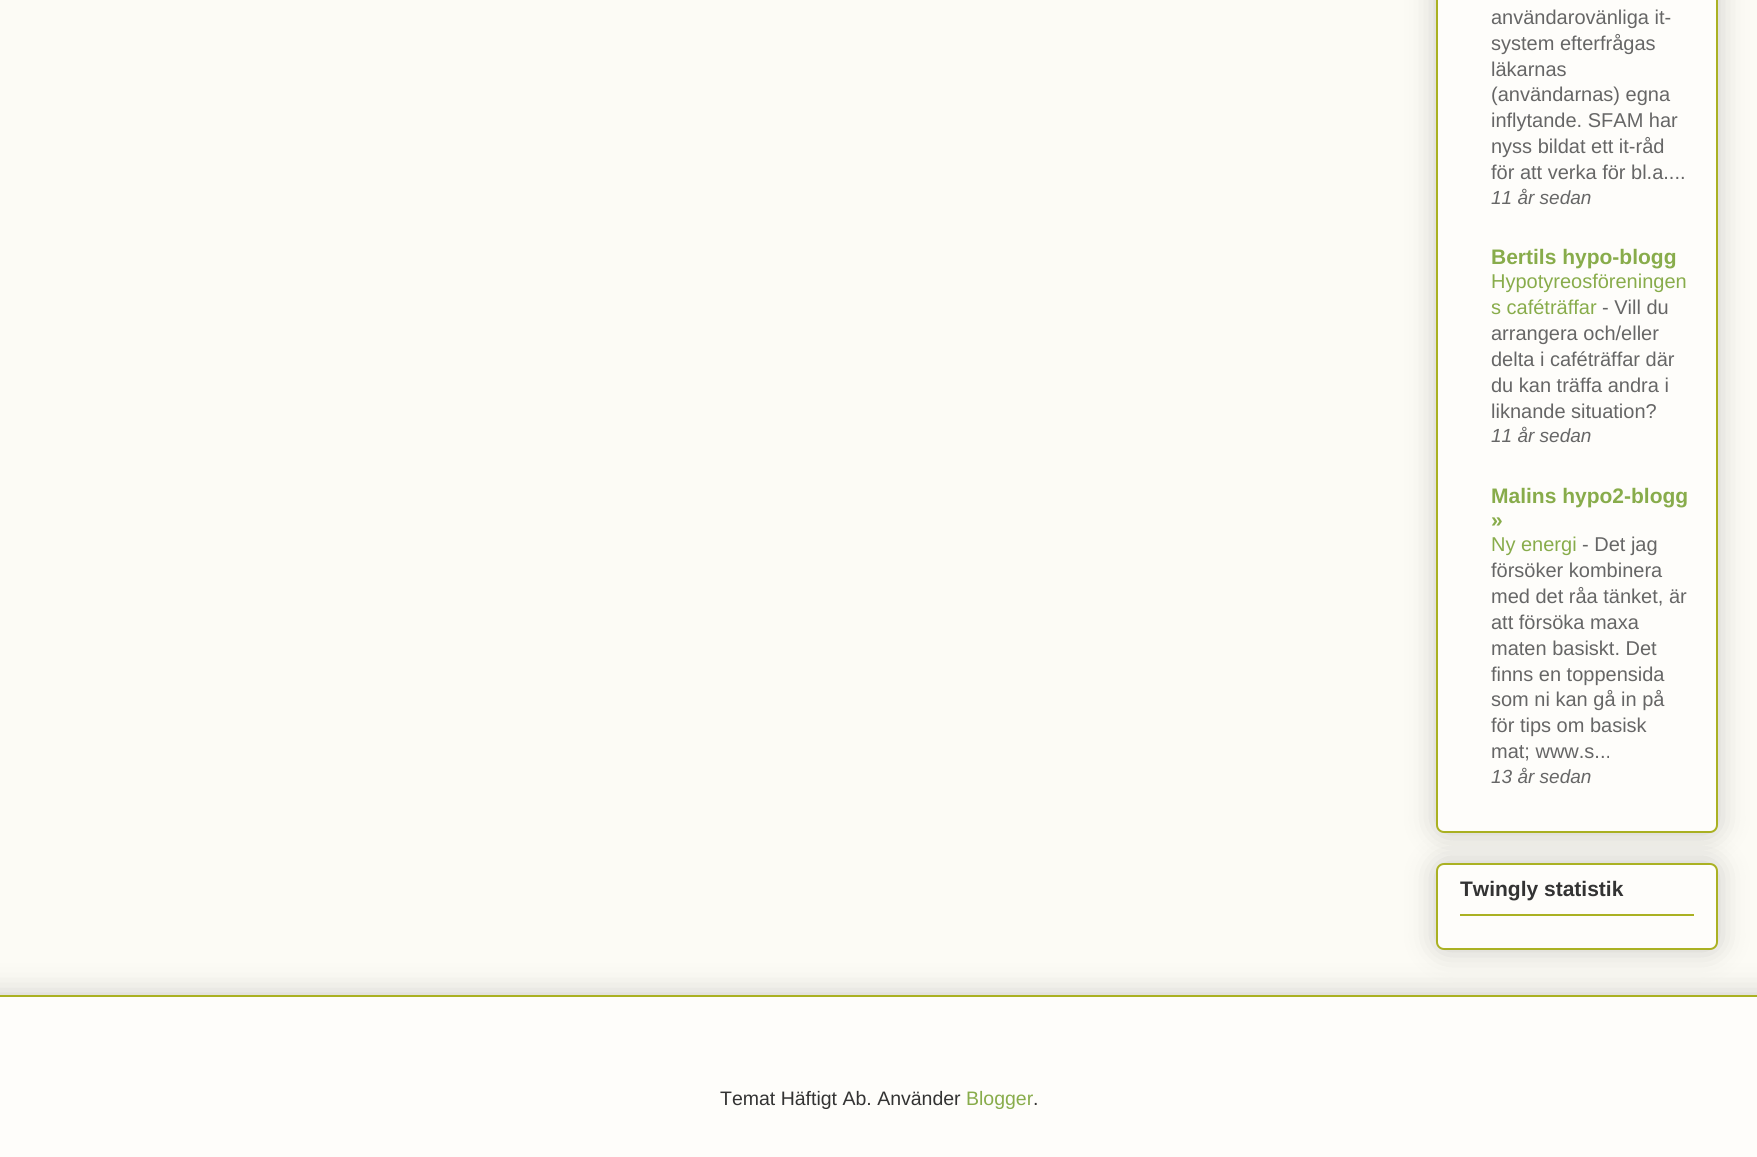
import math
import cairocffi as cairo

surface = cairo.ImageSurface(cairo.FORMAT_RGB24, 1757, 1157)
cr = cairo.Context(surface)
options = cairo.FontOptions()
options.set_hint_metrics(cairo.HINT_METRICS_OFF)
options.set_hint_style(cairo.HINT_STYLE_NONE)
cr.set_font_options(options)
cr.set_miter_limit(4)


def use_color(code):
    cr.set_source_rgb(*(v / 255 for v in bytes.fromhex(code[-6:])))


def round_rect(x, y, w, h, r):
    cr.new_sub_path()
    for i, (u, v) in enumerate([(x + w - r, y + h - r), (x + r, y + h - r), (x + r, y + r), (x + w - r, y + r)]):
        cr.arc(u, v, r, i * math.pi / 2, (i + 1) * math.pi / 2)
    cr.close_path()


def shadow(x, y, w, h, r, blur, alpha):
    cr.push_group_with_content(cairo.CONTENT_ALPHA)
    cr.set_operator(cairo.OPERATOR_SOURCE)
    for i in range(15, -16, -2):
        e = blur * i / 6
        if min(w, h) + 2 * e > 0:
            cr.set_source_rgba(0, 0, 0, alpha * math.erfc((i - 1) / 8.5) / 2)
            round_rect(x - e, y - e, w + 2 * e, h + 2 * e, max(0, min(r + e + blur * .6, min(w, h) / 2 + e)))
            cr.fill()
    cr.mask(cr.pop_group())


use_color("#fcfbf5")
cr.paint()
use_color("#000000")
shadow(1436, -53, 282, 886, 8, 15, 0.2)
use_color("#fefdfa")
round_rect(1437, -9, 280, 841, 7)
cr.fill_preserve()
use_color("#aab122")
cr.stroke()
cr.select_font_face("Liberation Sans")
cr.set_font_size(20)
use_color("#666666")
cr.move_to(1491, 24)
cr.show_text("användarovänliga it-")
cr.move_to(1491, 50)
cr.show_text("system efterfrågas")
cr.move_to(1491, 76)
cr.show_text("läkarnas")
cr.move_to(1491, 101)
cr.show_text("(användarnas) egna")
cr.move_to(1491, 127)
cr.show_text("inflytande. SFAM har")
cr.move_to(1491, 153)
cr.show_text("nyss bildat ett it-råd")
cr.move_to(1491, 179)
cr.show_text("för att verka för bl.a....")
cr.select_font_face("Liberation Sans", cairo.FONT_SLANT_ITALIC)
cr.set_font_size(19)
cr.move_to(1491, 204)
cr.show_text("11 år sedan")
cr.select_font_face("Liberation Sans", cairo.FONT_SLANT_NORMAL, cairo.FONT_WEIGHT_BOLD)
cr.set_font_size(21)
use_color("#88ac4b")
cr.move_to(1491, 264)
cr.show_text("Bertils hypo-blogg")
cr.select_font_face("Liberation Sans")
cr.set_font_size(20)
cr.move_to(1491, 288)
cr.show_text("Hypotyreosföreningen")
cr.move_to(1491, 314)
cr.show_text("s caféträffar")
use_color("#666666")
cr.move_to(1602, 314)
cr.show_text("- Vill du")
cr.move_to(1491, 340)
cr.show_text("arrangera och/eller")
cr.move_to(1491, 366)
cr.show_text("delta i caféträffar där")
cr.move_to(1491, 392)
cr.show_text("du kan träffa andra i")
cr.move_to(1491, 418)
cr.show_text("liknande situation?")
cr.select_font_face("Liberation Sans", cairo.FONT_SLANT_ITALIC)
cr.set_font_size(19)
cr.move_to(1491, 442)
cr.show_text("11 år sedan")
cr.select_font_face("Liberation Sans", cairo.FONT_SLANT_NORMAL, cairo.FONT_WEIGHT_BOLD)
cr.set_font_size(21)
use_color("#88ac4b")
cr.move_to(1491, 503)
cr.show_text("Malins hypo2-blogg")
cr.move_to(1491, 527)
cr.show_text("»")
cr.select_font_face("Liberation Sans")
cr.set_font_size(20)
cr.move_to(1491, 551)
cr.show_text("Ny energi")
use_color("#666666")
cr.move_to(1582, 551)
cr.show_text("- Det jag")
cr.move_to(1491, 577)
cr.show_text("försöker kombinera")
cr.move_to(1491, 603)
cr.show_text("med det råa tänket, är")
cr.move_to(1491, 629)
cr.show_text("att försöka maxa")
cr.move_to(1491, 655)
cr.show_text("maten basiskt. Det")
cr.move_to(1491, 681)
cr.show_text("finns en toppensida")
cr.move_to(1491, 706)
cr.show_text("som ni kan gå in på")
cr.move_to(1491, 732)
cr.show_text("för tips om basisk")
cr.move_to(1491, 758)
cr.show_text("mat; www.s...")
cr.select_font_face("Liberation Sans", cairo.FONT_SLANT_ITALIC)
cr.set_font_size(19)
cr.move_to(1491, 783)
cr.show_text("13 år sedan")
use_color("#000000")
shadow(1436, 863, 282, 87, 8, 15, 0.2)
use_color("#fefdfa")
round_rect(1437, 864, 280, 85, 7)
cr.fill_preserve()
use_color("#aab122")
cr.stroke()
cr.select_font_face("Liberation Sans", cairo.FONT_SLANT_NORMAL, cairo.FONT_WEIGHT_BOLD)
cr.set_font_size(21)
use_color("#333333")
cr.move_to(1460, 896)
cr.show_text("Twingly statistik")
use_color("#aab122")
cr.rectangle(1460, 914, 234, 2)
cr.fill()
use_color("#000000")
shadow(-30, 995, 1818, 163, 0, 15, 0.2)
use_color("#fefdfa")
cr.rectangle(0, 997, 1757, 160)
cr.fill()
use_color("#aab122")
cr.rectangle(0, 995, 1757, 2)
cr.fill()
cr.select_font_face("Liberation Sans")
cr.set_font_size(19.5)
use_color("#333333")
cr.move_to(720, 1105)
cr.show_text("Temat Häftigt Ab. Använder")
use_color("#88ac4b")
cr.move_to(966, 1105)
cr.show_text("Blogger")
use_color("#333333")
cr.move_to(1033, 1105)
cr.show_text(".")
surface.write_to_png("result.png")
